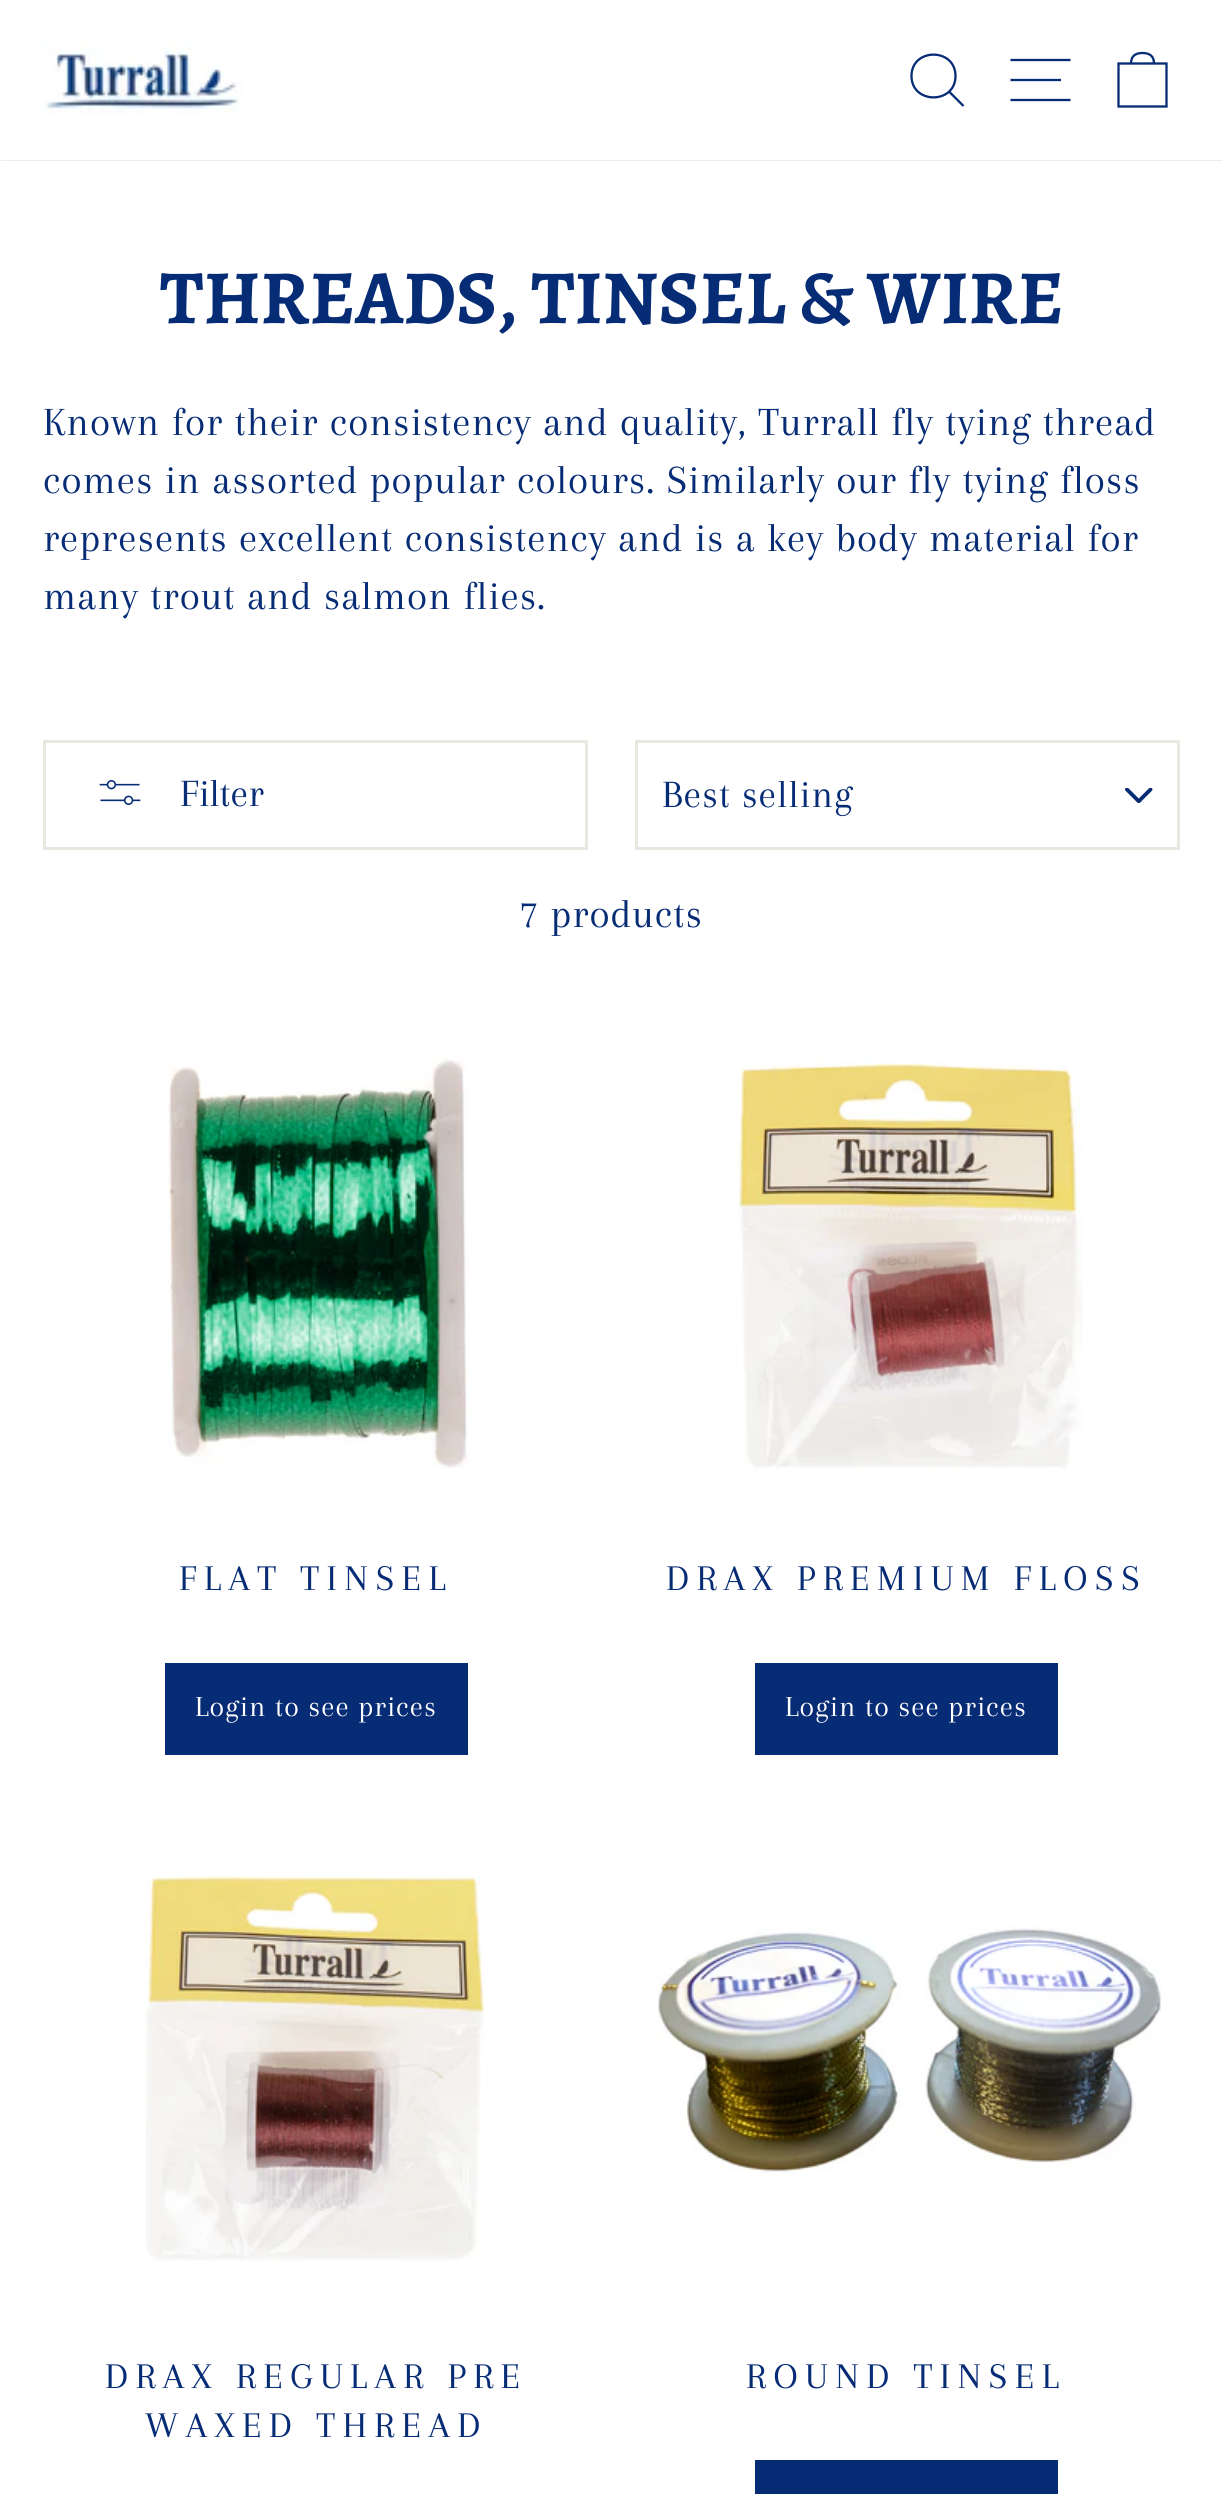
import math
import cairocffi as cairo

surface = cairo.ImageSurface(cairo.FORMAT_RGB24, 1222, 2494)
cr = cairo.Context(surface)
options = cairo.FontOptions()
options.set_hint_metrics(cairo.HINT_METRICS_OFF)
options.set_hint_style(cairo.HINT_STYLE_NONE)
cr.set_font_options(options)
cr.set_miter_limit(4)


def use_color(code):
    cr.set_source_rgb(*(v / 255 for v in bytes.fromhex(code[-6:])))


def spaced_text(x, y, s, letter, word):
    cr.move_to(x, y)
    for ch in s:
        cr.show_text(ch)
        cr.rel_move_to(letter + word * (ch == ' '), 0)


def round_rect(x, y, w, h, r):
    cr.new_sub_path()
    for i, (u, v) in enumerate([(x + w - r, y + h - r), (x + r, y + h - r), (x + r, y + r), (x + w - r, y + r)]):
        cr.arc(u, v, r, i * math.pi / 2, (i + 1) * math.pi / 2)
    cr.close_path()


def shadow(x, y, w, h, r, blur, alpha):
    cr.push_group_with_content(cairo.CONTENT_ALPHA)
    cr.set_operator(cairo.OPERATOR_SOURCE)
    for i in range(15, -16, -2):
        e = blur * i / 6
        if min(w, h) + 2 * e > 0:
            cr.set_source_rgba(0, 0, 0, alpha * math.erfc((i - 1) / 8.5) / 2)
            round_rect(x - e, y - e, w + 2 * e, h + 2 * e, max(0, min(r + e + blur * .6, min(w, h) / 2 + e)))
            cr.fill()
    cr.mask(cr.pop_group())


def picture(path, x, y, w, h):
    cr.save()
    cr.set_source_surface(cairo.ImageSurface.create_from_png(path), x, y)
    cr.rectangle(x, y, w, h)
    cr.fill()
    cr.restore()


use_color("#ffffff")
cr.paint()
cr.save()
cr.rectangle(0, 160, 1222, 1)
cr.clip()
use_color("#000000")
shadow(0, 0, 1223, 160, 0, 1, 0.2)
cr.restore()
picture("img1.png", 42, 42, 201, 74)
cr.new_path()
cr.move_to(955.5, 76)
cr.curve_to(955.5, 104.5, 911.5, 104.5, 911.5, 76)
cr.curve_to(911.5, 47.5, 955.5, 47.5, 955.5, 76)
cr.close_path()
cr.move_to(963.5, 106)
cr.line_to(949, 91.5)
use_color("#072c76")
cr.set_line_width(2.3)
cr.stroke()
cr.new_path()
cr.move_to(1010.5, 60)
cr.line_to(1070.5, 60)
cr.move_to(1010.5, 80)
cr.line_to(1061, 80)
cr.move_to(1010.5, 100)
cr.line_to(1070.5, 100)
cr.stroke()
cr.new_path()
cr.move_to(1118.5, 63.5)
cr.line_to(1166.5, 63.5)
cr.line_to(1166.5, 106.5)
cr.line_to(1118.5, 106.5)
cr.close_path()
cr.move_to(1131, 63.5)
cr.curve_to(1131, 55.5, 1136, 53, 1142.5, 53)
cr.curve_to(1149, 53, 1154, 55.5, 1154, 63.5)
cr.stroke()
cr.select_font_face("Alegreya", cairo.FONT_SLANT_NORMAL, cairo.FONT_WEIGHT_BOLD)
cr.set_font_size(76.5)
cr.move_to(160, 323)
cr.show_text("THREADS, TINSEL & WIRE")
cr.select_font_face("Arapey")
cr.set_font_size(41.4)
spaced_text(43, 435, "Known for their consistency and quality, Turrall fly tying thread", 1.03, 0)
spaced_text(43, 493, "comes in assorted popular colours. Similarly our fly tying floss", 1.03, 0)
spaced_text(43, 551, "represents excellent consistency and is a key body material for", 1.03, 0)
spaced_text(43, 609, "many trout and salmon flies.", 1.03, 0)
cr.rectangle(44.5, 741.5, 542, 107)
use_color("#e8e8e1")
cr.set_line_width(3)
cr.stroke()
picture("img2.png", 99, 780, 42, 25)
cr.set_font_size(40)
use_color("#072c76")
cr.move_to(180, 806)
cr.show_text("Filter")
picture("img3.png", 1125, 788, 28, 15)
cr.rectangle(636.5, 741.5, 542, 107)
use_color("#e8e8e1")
cr.stroke()
use_color("#072c76")
spaced_text(662, 807, "Best selling", 1, 0)
cr.set_font_size(41.4)
spaced_text(519, 927, "7 products", 1.03, 0)
picture("img4.png", 167, 1056, 302, 413)
cr.set_font_size(37.5)
spaced_text(179, 1590, "FLAT TINSEL", 7.5, 0)
cr.rectangle(165, 1663, 303, 92)
cr.fill()
cr.set_font_size(30)
use_color("#ffffff")
spaced_text(195, 1716, "Login to see prices", 1.03, 0)
picture("img5.png", 738, 1058, 345, 411)
cr.set_font_size(37.5)
use_color("#072c76")
spaced_text(666, 1590, "DRAX PREMIUM FLOSS", 7.5, 0)
cr.rectangle(755, 1663, 303, 92)
cr.fill()
cr.set_font_size(30)
use_color("#ffffff")
spaced_text(785, 1716, "Login to see prices", 1.03, 0)
picture("img6.png", 145, 1876, 340, 385)
cr.set_font_size(37.5)
use_color("#072c76")
spaced_text(105, 2388, "DRAX REGULAR PRE", 7.5, 0)
spaced_text(145, 2437, "WAXED THREAD", 7.5, 0)
picture("img7.png", 657, 1926, 505, 248)
spaced_text(746, 2388, "ROUND TINSEL", 7.5, 0)
cr.rectangle(755, 2460, 303, 34)
cr.fill()
surface.write_to_png("result.png")
